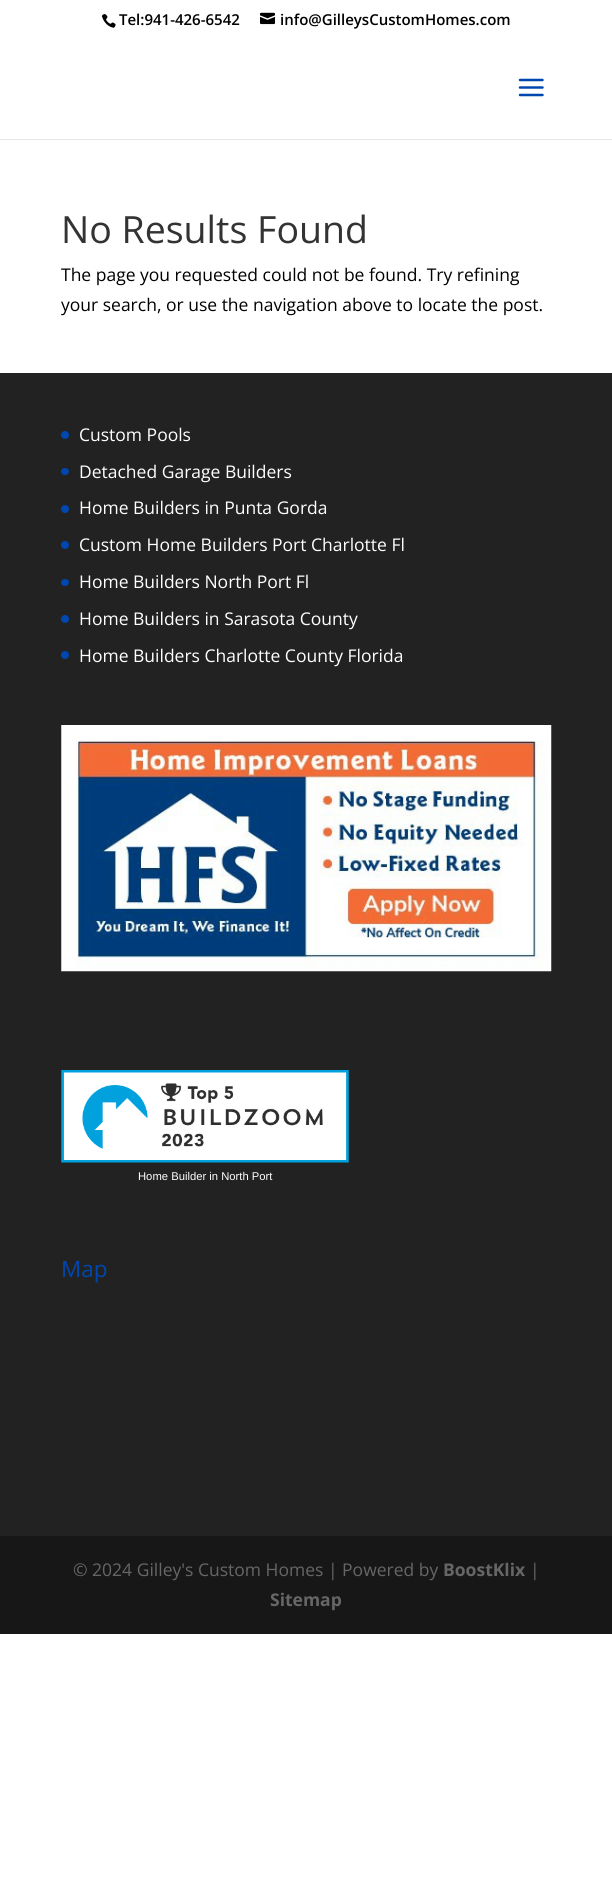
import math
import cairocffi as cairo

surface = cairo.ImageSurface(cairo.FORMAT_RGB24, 612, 1878)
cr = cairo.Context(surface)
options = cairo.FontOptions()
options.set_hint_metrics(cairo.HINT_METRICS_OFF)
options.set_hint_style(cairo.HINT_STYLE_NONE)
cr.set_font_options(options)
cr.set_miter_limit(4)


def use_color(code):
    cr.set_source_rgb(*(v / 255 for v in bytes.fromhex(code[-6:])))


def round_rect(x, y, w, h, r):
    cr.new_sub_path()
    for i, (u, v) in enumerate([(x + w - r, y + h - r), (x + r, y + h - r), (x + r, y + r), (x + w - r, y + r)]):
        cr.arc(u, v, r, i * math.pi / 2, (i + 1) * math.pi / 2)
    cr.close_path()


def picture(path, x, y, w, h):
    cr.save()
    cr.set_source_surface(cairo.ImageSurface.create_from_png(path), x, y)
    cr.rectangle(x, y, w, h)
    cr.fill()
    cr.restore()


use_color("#ffffff")
cr.paint()
picture("img1.png", 101, 14, 15, 14)
cr.select_font_face("Open Sans SemiBold")
cr.set_font_size(15)
use_color("#000000")
cr.move_to(119, 25)
cr.show_text("Tel:941-426-6542")
picture("img2.png", 260, 12, 15, 13)
cr.move_to(280, 25)
cr.show_text("info@GilleysCustomHomes.com")
use_color("#e6e6e6")
cr.new_path()
cr.move_to(0, 139)
cr.line_to(0, 140)
cr.line_to(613, 140)
cr.line_to(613, 40)
cr.line_to(612, 40)
cr.line_to(612, 139)
cr.close_path()
cr.fill()
picture("img3.png", 518, 78, 26, 19)
cr.select_font_face("Open Sans")
cr.set_font_size(37.5)
use_color("#333333")
cr.move_to(61, 243)
cr.show_text("No Results Found")
cr.set_font_size(17.5)
use_color("#000000")
cr.move_to(61, 281)
cr.show_text("The page you requested could not be found. Try refining")
cr.move_to(61, 311)
cr.show_text("your search, or use the navigation above to locate the post.")
use_color("#222222")
cr.rectangle(0, 373, 612, 1163)
cr.fill()
use_color("#0046af")
cr.arc(65, 435, 4, 0, 2 * math.pi)
cr.fill()
use_color("#ffffff")
cr.move_to(79, 441)
cr.show_text("Custom Pools")
use_color("#0046af")
round_rect(61, 468, 8, 7, 3.5)
cr.fill()
use_color("#ffffff")
cr.move_to(79, 478)
cr.show_text("Detached Garage Builders")
use_color("#0046af")
cr.new_path()
cr.arc(65, 509, 4, 0, 2 * math.pi)
cr.fill()
use_color("#ffffff")
cr.move_to(79, 514)
cr.show_text("Home Builders in Punta Gorda")
use_color("#0046af")
cr.new_path()
cr.arc(65, 545, 4, 0, 2 * math.pi)
cr.fill()
use_color("#ffffff")
cr.move_to(79, 551)
cr.show_text("Custom Home Builders Port Charlotte Fl")
use_color("#0046af")
round_rect(61, 579, 8, 7, 3.5)
cr.fill()
use_color("#ffffff")
cr.move_to(79, 588)
cr.show_text("Home Builders North Port Fl")
use_color("#0046af")
cr.new_path()
cr.arc(65, 619, 4, 0, 2 * math.pi)
cr.fill()
use_color("#ffffff")
cr.move_to(79, 625)
cr.show_text("Home Builders in Sarasota County")
use_color("#0046af")
cr.new_path()
cr.arc(65, 655, 4, 0, 2 * math.pi)
cr.fill()
use_color("#ffffff")
cr.move_to(79, 662)
cr.show_text("Home Builders Charlotte County Florida")
picture("img4.png", 61, 725, 491, 247)
picture("img5.png", 61, 1070, 288, 93)
cr.select_font_face("Liberation Sans")
cr.set_font_size(11.25)
cr.move_to(138, 1180)
cr.show_text("Home Builder in North Port")
cr.select_font_face("Open Sans")
cr.set_font_size(22.5)
use_color("#0046af")
cr.move_to(61, 1277)
cr.show_text("Map")
use_color("#171717")
cr.rectangle(0, 1536, 612, 98)
cr.fill()
cr.set_font_size(17.5)
use_color("#666666")
cr.move_to(73, 1576)
cr.show_text("© 2024 Gilley's Custom Homes | Powered by")
cr.select_font_face("Open Sans", cairo.FONT_SLANT_NORMAL, cairo.FONT_WEIGHT_BOLD)
cr.move_to(443, 1576)
cr.show_text("BoostKlix")
cr.select_font_face("Open Sans")
cr.move_to(530, 1576)
cr.show_text("|")
cr.select_font_face("Open Sans", cairo.FONT_SLANT_NORMAL, cairo.FONT_WEIGHT_BOLD)
cr.move_to(270, 1606)
cr.show_text("Sitemap")
surface.write_to_png("result.png")
